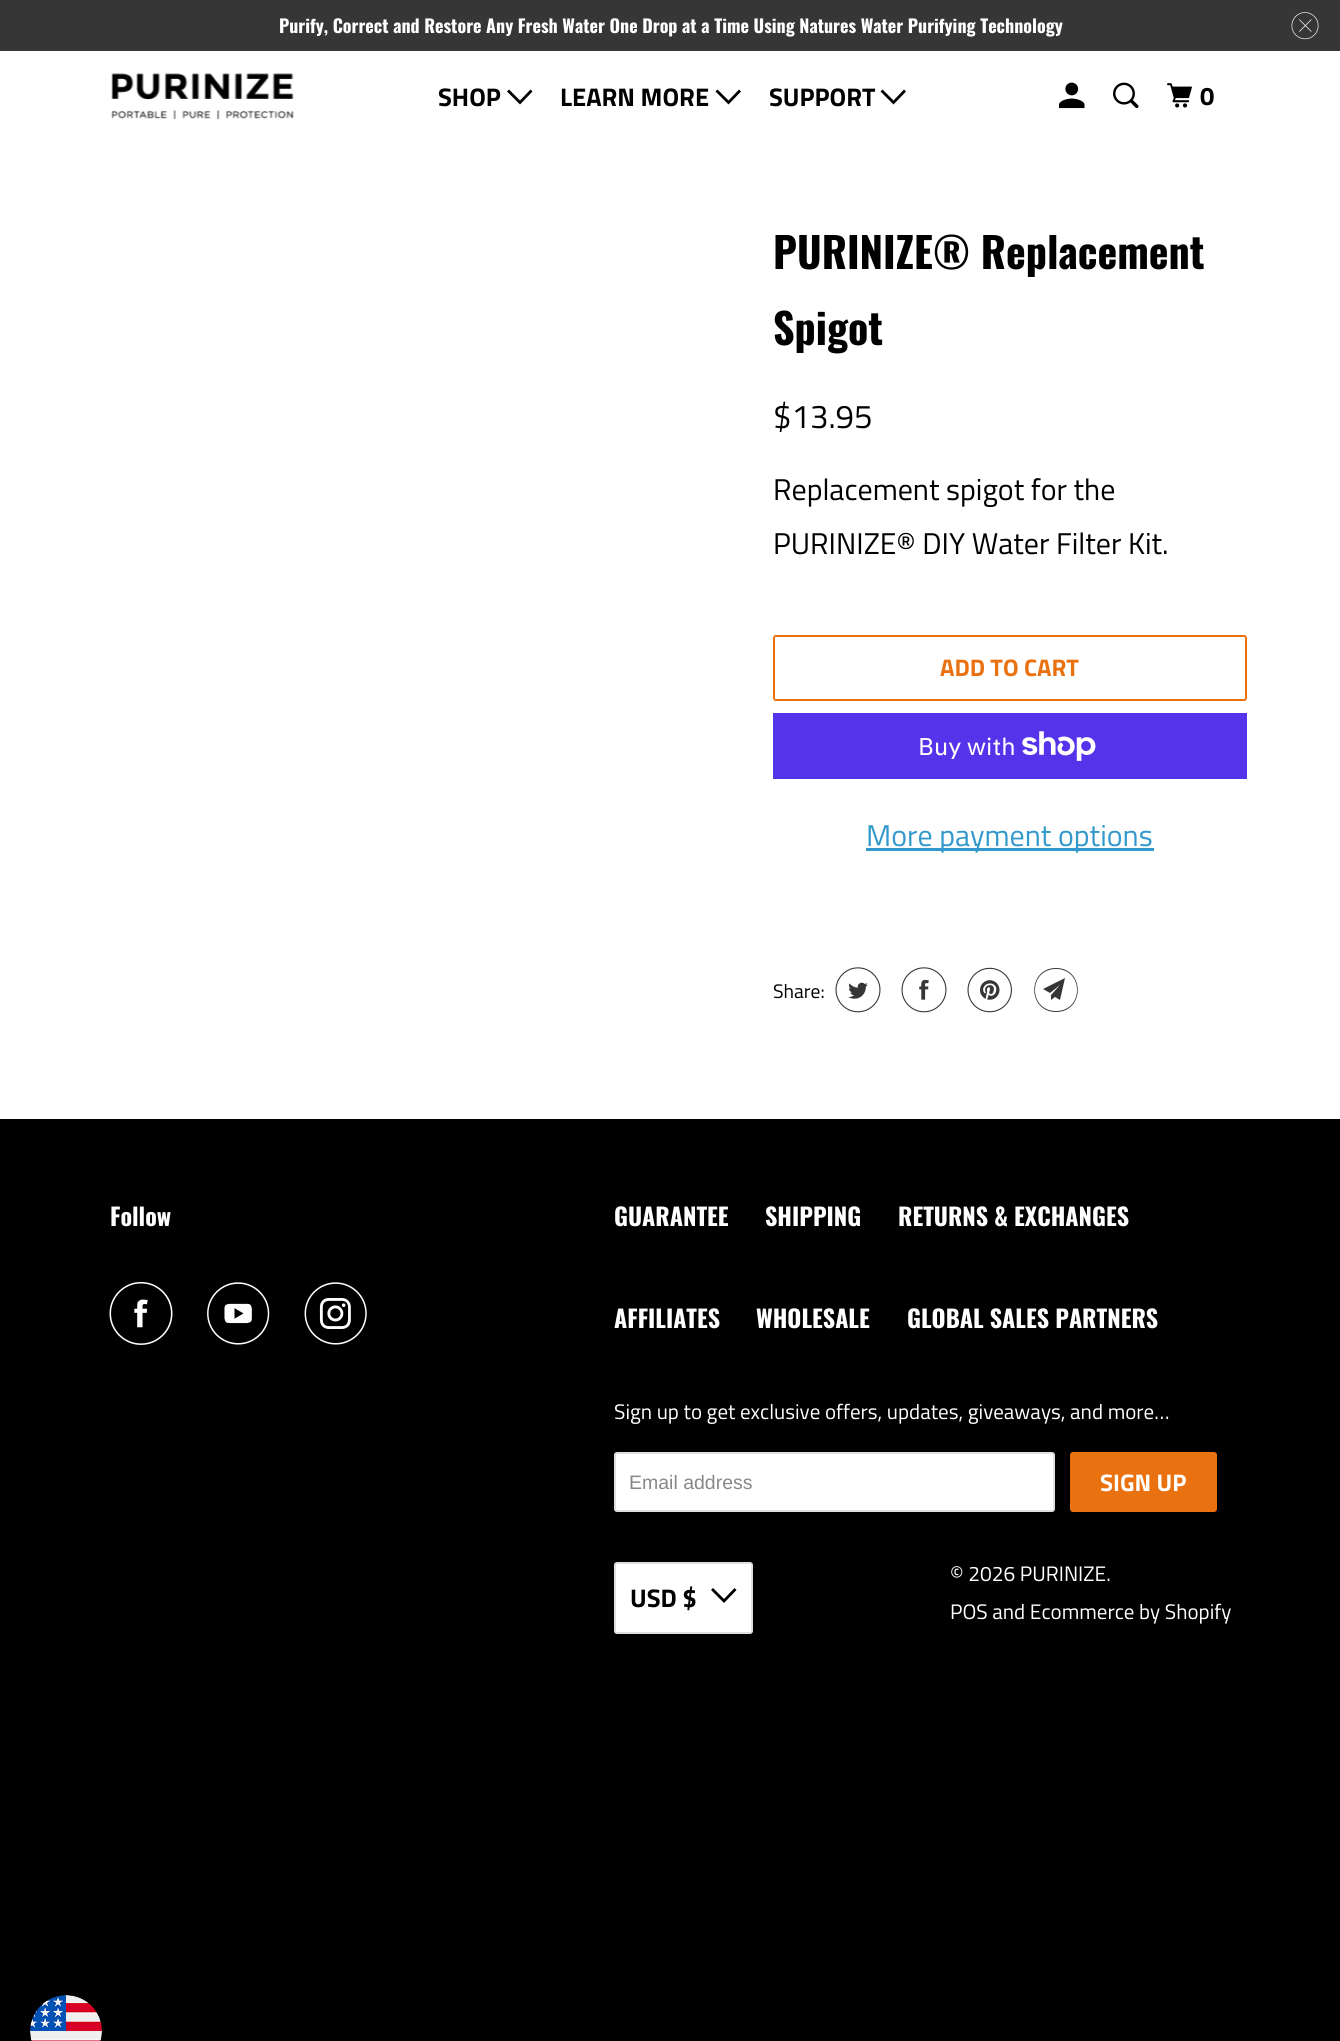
import math
import cairocffi as cairo

surface = cairo.ImageSurface(cairo.FORMAT_RGB24, 1340, 2041)
cr = cairo.Context(surface)
options = cairo.FontOptions()
options.set_hint_metrics(cairo.HINT_METRICS_OFF)
options.set_hint_style(cairo.HINT_STYLE_NONE)
cr.set_font_options(options)
cr.set_miter_limit(4)


def use_color(code):
    cr.set_source_rgb(*(v / 255 for v in bytes.fromhex(code[-6:])))


def round_rect(x, y, w, h, r):
    cr.new_sub_path()
    for i, (u, v) in enumerate([(x + w - r, y + h - r), (x + r, y + h - r), (x + r, y + r), (x + w - r, y + r)]):
        cr.arc(u, v, r, i * math.pi / 2, (i + 1) * math.pi / 2)
    cr.close_path()


def picture(path, x, y, w, h):
    cr.save()
    cr.set_source_surface(cairo.ImageSurface.create_from_png(path), x, y)
    cr.rectangle(x, y, w, h)
    cr.fill()
    cr.restore()


use_color("#000000")
cr.paint()
use_color("#ffffff")
cr.rectangle(0, 51, 1340, 1068)
cr.fill()
use_color("#363636")
cr.rectangle(0, 0, 1340, 51)
cr.fill()
cr.select_font_face("Oswald", cairo.FONT_SLANT_NORMAL, cairo.FONT_WEIGHT_BOLD)
cr.set_font_size(18)
use_color("#ffffff")
cr.move_to(279, 33)
cr.show_text("Purify, Correct and Restore Any Fresh Water One Drop at a Time Using Natures Water Purifying Technology")
picture("img1.png", 1291, 12, 28, 28)
picture("img2.png", 111, 73, 183, 47)
cr.select_font_face("Titillium Web", cairo.FONT_SLANT_NORMAL, cairo.FONT_WEIGHT_BOLD)
cr.set_font_size(25.5)
use_color("#000000")
cr.move_to(438, 106)
cr.show_text("SHOP")
cr.new_path()
cr.move_to(513.5, 98)
cr.line_to(507, 91.5)
cr.line_to(509, 89.5)
cr.line_to(520, 100.5)
cr.line_to(530.5, 89.5)
cr.line_to(532.5, 91.5)
cr.line_to(520, 104.5)
cr.close_path()
cr.fill()
cr.move_to(560, 106)
cr.show_text("LEARN MORE")
cr.new_path()
cr.move_to(722, 98)
cr.line_to(715.5, 91.5)
cr.line_to(717.5, 89.5)
cr.line_to(728.5, 100.5)
cr.line_to(739, 89.5)
cr.line_to(741, 91.5)
cr.line_to(728.5, 104.5)
cr.close_path()
cr.fill()
cr.move_to(769, 106)
cr.show_text("SUPPORT")
cr.new_path()
cr.move_to(887, 98)
cr.line_to(880.5, 91.5)
cr.line_to(882.5, 89.5)
cr.line_to(893.5, 100.5)
cr.line_to(904, 89.5)
cr.line_to(906, 91.5)
cr.line_to(893.5, 104.5)
cr.close_path()
cr.fill()
picture("img3.png", 1059, 82, 26, 27)
picture("img4.png", 1113, 82, 26, 27)
picture("img5.png", 1167, 83, 25, 25)
cr.move_to(1200, 105)
cr.show_text("0")
cr.select_font_face("Oswald", cairo.FONT_SLANT_NORMAL, cairo.FONT_WEIGHT_BOLD)
cr.set_font_size(42)
cr.move_to(773, 269)
cr.show_text("PURINIZE® Replacement")
cr.move_to(773, 345)
cr.show_text("Spigot")
cr.select_font_face("Titillium Web")
cr.set_font_size(33)
cr.move_to(773, 428)
cr.show_text("$13.95")
cr.set_font_size(30)
cr.move_to(773, 500)
cr.show_text("Replacement spigot for the")
cr.move_to(773, 554)
cr.show_text("PURINIZE® DIY Water Filter Kit.")
round_rect(774, 636, 472, 64, 2)
use_color("#e97110")
cr.stroke()
cr.select_font_face("Titillium Web", cairo.FONT_SLANT_NORMAL, cairo.FONT_WEIGHT_BOLD)
cr.set_font_size(24)
cr.move_to(940, 676)
cr.show_text("ADD TO CART")
use_color("#5433eb")
cr.rectangle(773, 713, 474, 66)
cr.fill()
cr.select_font_face("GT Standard")
use_color("#ffffff")
cr.move_to(918, 755)
cr.show_text("Buy with")
picture("img6.png", 1022, 731, 74, 30)
use_color("#3399cc")
cr.rectangle(866, 848, 288, 3)
cr.fill()
cr.select_font_face("Titillium Web")
cr.set_font_size(30)
cr.move_to(866, 846)
cr.show_text("More payment options")
cr.set_font_size(19.5)
use_color("#000000")
cr.move_to(773, 998)
cr.show_text("Share:")
picture("img7.png", 835, 967, 46, 46)
picture("img8.png", 901, 967, 46, 46)
picture("img9.png", 967, 967, 45, 46)
use_color("#363636")
cr.new_path()
cr.move_to(1060, 1000)
cr.line_to(1055, 997)
cr.line_to(1051, 1000)
cr.line_to(1051, 995)
cr.line_to(1060, 985)
cr.line_to(1050, 993)
cr.line_to(1043, 989)
cr.line_to(1065, 978)
cr.close_path()
cr.move_to(1056, 969)
cr.curve_to(1028, 969, 1028, 1011, 1056, 1011)
cr.curve_to(1084, 1011, 1084, 969, 1056, 969)
cr.close_path()
cr.move_to(1056, 1012)
cr.curve_to(1027, 1012, 1027, 968, 1056, 968)
cr.curve_to(1085, 968, 1085, 1012, 1056, 1012)
cr.close_path()
cr.fill()
cr.select_font_face("Oswald", cairo.FONT_SLANT_NORMAL, cairo.FONT_WEIGHT_BOLD)
cr.set_font_size(24)
use_color("#ffffff")
cr.move_to(110, 1226)
cr.show_text("Follow")
picture("img10.png", 109, 1281, 64, 64)
picture("img11.png", 207, 1282, 63, 63)
picture("img12.png", 304, 1282, 63, 63)
cr.move_to(614, 1226)
cr.show_text("GUARANTEE")
cr.move_to(765, 1226)
cr.show_text("SHIPPING")
cr.move_to(898, 1226)
cr.show_text("RETURNS & EXCHANGES")
cr.move_to(614, 1328)
cr.show_text("AFFILIATES")
cr.move_to(756, 1328)
cr.show_text("WHOLESALE")
cr.move_to(907, 1328)
cr.show_text("GLOBAL SALES PARTNERS")
cr.select_font_face("Titillium Web")
cr.set_font_size(21)
cr.move_to(614, 1419)
cr.show_text("Sign up to get exclusive offers, updates, giveaways, and more…")
round_rect(615, 1453, 439, 58, 2)
cr.fill_preserve()
use_color("#dfdfdf")
cr.stroke()
cr.select_font_face("Liberation Sans")
cr.set_font_size(19.5)
use_color("#888888")
cr.move_to(629, 1489)
cr.show_text("Email address")
use_color("#e97110")
round_rect(1070, 1452, 147, 60, 3)
cr.fill()
cr.select_font_face("Titillium Web", cairo.FONT_SLANT_NORMAL, cairo.FONT_WEIGHT_BOLD)
cr.set_font_size(24)
use_color("#ffffff")
cr.move_to(1100, 1491)
cr.show_text("SIGN UP")
round_rect(615, 1563, 137, 70, 2)
cr.fill_preserve()
use_color("#dfdfdf")
cr.stroke()
cr.set_font_size(25.5)
use_color("#000000")
cr.move_to(630, 1607)
cr.show_text("USD $")
cr.new_path()
cr.move_to(717.5, 1596.5)
cr.line_to(711, 1590)
cr.line_to(713, 1588)
cr.line_to(724, 1599)
cr.line_to(734.5, 1588)
cr.line_to(736.5, 1590)
cr.line_to(724, 1603)
cr.close_path()
cr.fill()
cr.select_font_face("Titillium Web")
cr.set_font_size(21)
use_color("#ffffff")
cr.move_to(950, 1581)
cr.show_text("© 2026 PURINIZE.")
cr.move_to(950, 1619)
cr.show_text("POS and Ecommerce by Shopify")
picture("img13.png", 30, 1995, 72, 46)
surface.write_to_png("result.png")
